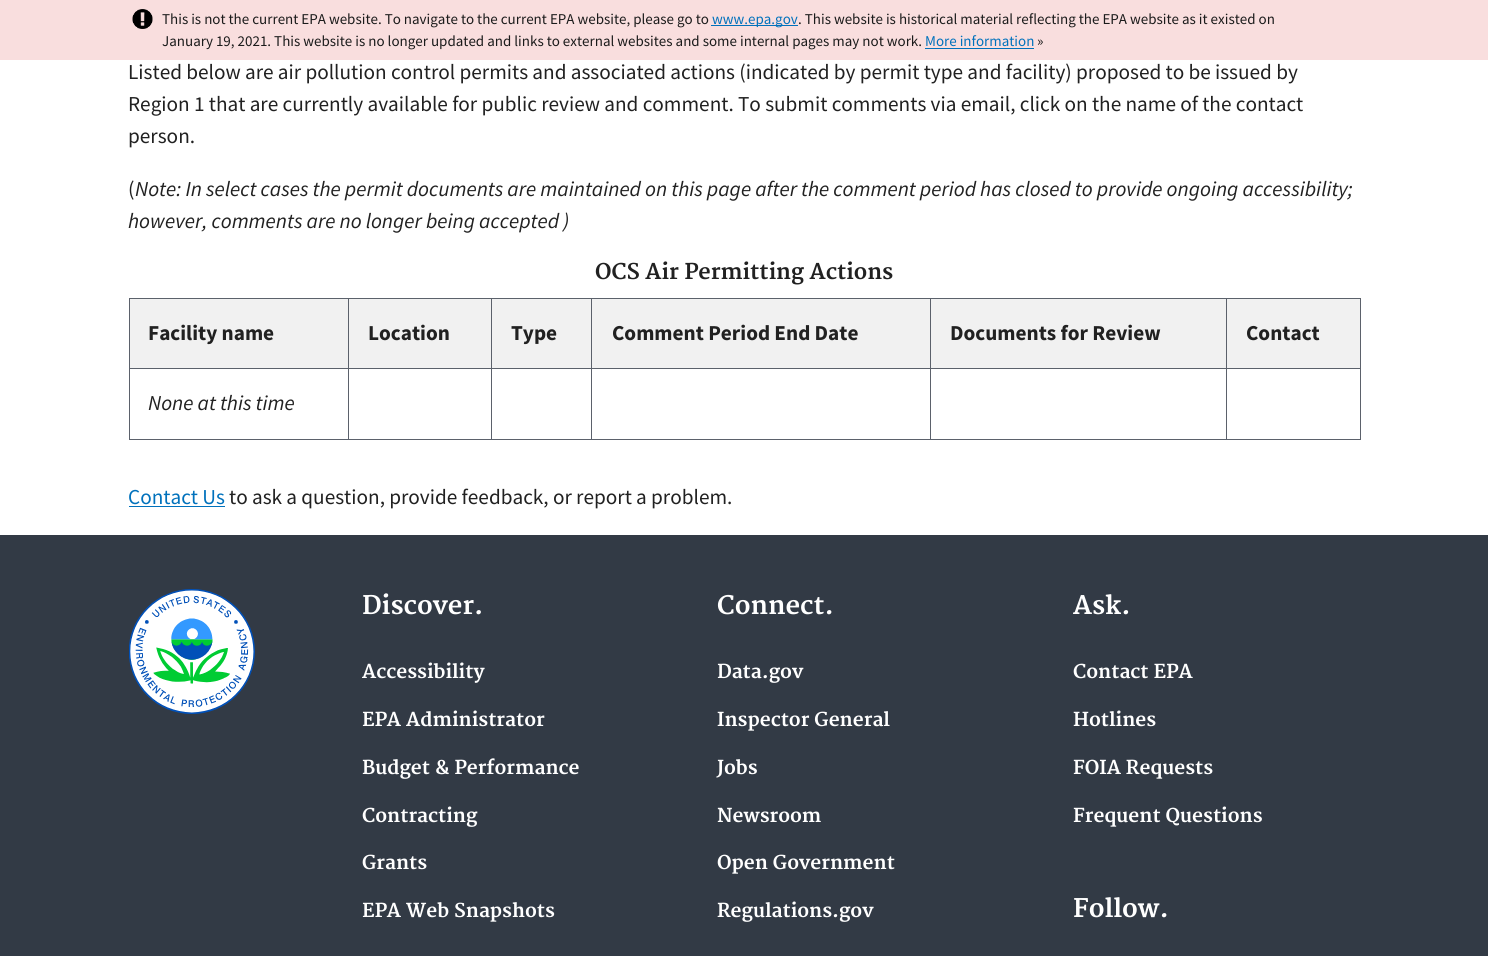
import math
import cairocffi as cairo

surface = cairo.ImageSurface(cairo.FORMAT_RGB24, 1488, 956)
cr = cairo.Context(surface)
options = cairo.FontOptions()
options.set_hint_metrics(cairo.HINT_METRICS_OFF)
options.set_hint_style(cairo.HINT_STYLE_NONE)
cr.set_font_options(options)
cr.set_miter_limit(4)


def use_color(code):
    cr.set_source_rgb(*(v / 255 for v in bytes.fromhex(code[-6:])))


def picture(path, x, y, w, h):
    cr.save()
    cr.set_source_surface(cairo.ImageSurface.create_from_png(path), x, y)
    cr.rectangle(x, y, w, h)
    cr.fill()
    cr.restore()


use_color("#ffffff")
cr.paint()
use_color("#f9dede")
cr.rectangle(0, 0, 1488, 60)
cr.fill()
picture("img1.png", 132, 9, 21, 20)
cr.select_font_face("Source Sans Pro")
cr.set_font_size(15)
use_color("#1b1b1b")
cr.move_to(162, 24)
cr.show_text("This is not the current EPA website. To navigate to the current EPA website, please go to")
use_color("#0071bc")
cr.rectangle(711, 25, 87, 1)
cr.fill()
cr.move_to(712, 24)
cr.show_text("www.epa.gov")
use_color("#1b1b1b")
cr.move_to(798, 24)
cr.show_text(". This website is historical material reflecting the EPA website as it existed on")
cr.move_to(162, 46)
cr.show_text("January 19, 2021. This website is no longer updated and links to external websites and some internal pages may not work.")
use_color("#0071bc")
cr.move_to(925, 46)
cr.show_text("More information")
cr.rectangle(925, 48, 109, 1)
cr.fill()
use_color("#1b1b1b")
cr.move_to(1037, 46)
cr.show_text("»")
cr.set_font_size(21.25)
use_color("#212121")
cr.move_to(128, 79)
cr.show_text("Listed below are air pollution control permits and associated actions (indicated by permit type and facility) proposed to be issued by")
cr.move_to(128, 111)
cr.show_text("Region 1 that are currently available for public review and comment. To submit comments via email, click on the name of the contact")
cr.move_to(128, 143)
cr.show_text("person.")
cr.move_to(128, 196)
cr.show_text("(")
cr.select_font_face("Source Sans Pro", cairo.FONT_SLANT_ITALIC)
cr.move_to(135, 196)
cr.show_text("Note: In select cases the permit documents are maintained on this page after the comment period has closed to provide ongoing accessibility;")
cr.move_to(128, 228)
cr.show_text("however, comments are no longer being accepted )")
cr.select_font_face("Merriweather", cairo.FONT_SLANT_NORMAL, cairo.FONT_WEIGHT_BOLD)
cr.move_to(595, 279)
cr.show_text("OCS Air Permitting Actions")
use_color("#f1f1f1")
cr.rectangle(130, 299, 218, 69)
cr.fill()
use_color("#5b616b")
cr.rectangle(1226, 298, 135, 1)
cr.fill()
cr.rectangle(1226, 368, 135, 1)
cr.fill()
cr.rectangle(1360, 368, 1, 72)
cr.fill()
cr.rectangle(1226, 439, 135, 1)
cr.fill()
cr.rectangle(1226, 368, 1, 72)
cr.fill()
cr.rectangle(930, 368, 298, 1)
cr.fill()
cr.rectangle(1226, 298, 1, 71)
cr.fill()
cr.rectangle(930, 298, 298, 1)
cr.fill()
cr.rectangle(930, 439, 298, 1)
cr.fill()
cr.rectangle(930, 368, 1, 72)
cr.fill()
cr.rectangle(591, 368, 340, 1)
cr.fill()
cr.rectangle(930, 298, 1, 71)
cr.fill()
cr.rectangle(591, 298, 340, 1)
cr.fill()
use_color("#f1f1f1")
cr.rectangle(492, 299, 438, 69)
cr.fill()
use_color("#5b616b")
cr.rectangle(591, 439, 340, 1)
cr.fill()
cr.rectangle(591, 368, 1, 72)
cr.fill()
cr.rectangle(491, 368, 102, 1)
cr.fill()
cr.rectangle(591, 298, 1, 71)
cr.fill()
cr.rectangle(491, 298, 102, 1)
cr.fill()
cr.rectangle(491, 439, 102, 1)
cr.fill()
cr.rectangle(491, 368, 1, 72)
cr.fill()
cr.rectangle(348, 368, 145, 1)
cr.fill()
cr.rectangle(491, 298, 1, 71)
cr.fill()
cr.rectangle(348, 298, 145, 1)
cr.fill()
cr.rectangle(348, 439, 145, 1)
cr.fill()
cr.rectangle(348, 368, 1, 72)
cr.fill()
cr.rectangle(129, 368, 220, 1)
cr.fill()
cr.rectangle(348, 298, 1, 71)
cr.fill()
cr.rectangle(129, 298, 220, 1)
cr.fill()
cr.rectangle(129, 439, 220, 1)
cr.fill()
cr.rectangle(129, 368, 1, 72)
cr.fill()
cr.rectangle(129, 298, 1, 71)
cr.fill()
cr.select_font_face("Source Sans Pro", cairo.FONT_SLANT_NORMAL, cairo.FONT_WEIGHT_BOLD)
use_color("#212121")
cr.move_to(148, 340)
cr.show_text("Facility name")
use_color("#f1f1f1")
cr.rectangle(349, 299, 142, 69)
cr.fill()
use_color("#212121")
cr.move_to(368, 340)
cr.show_text("Location")
cr.move_to(511, 340)
cr.show_text("Type")
cr.move_to(612, 340)
cr.show_text("Comment Period End Date")
use_color("#f1f1f1")
cr.rectangle(931, 299, 295, 69)
cr.fill()
use_color("#212121")
cr.move_to(950, 340)
cr.show_text("Documents for Review")
use_color("#f1f1f1")
cr.rectangle(1227, 299, 133, 69)
cr.fill()
use_color("#5b616b")
cr.rectangle(1360, 298, 1, 71)
cr.fill()
use_color("#212121")
cr.move_to(1246, 340)
cr.show_text("Contact")
cr.select_font_face("Source Sans Pro", cairo.FONT_SLANT_ITALIC)
cr.move_to(148, 410)
cr.show_text("None at this time")
cr.select_font_face("Source Sans Pro")
use_color("#0071bc")
cr.move_to(128, 504)
cr.show_text("Contact Us")
cr.rectangle(129, 506, 96, 1)
cr.fill()
use_color("#212121")
cr.move_to(229, 504)
cr.show_text("to ask a question, provide feedback, or report a problem.")
use_color("#323a45")
cr.rectangle(0, 535, 1488, 421)
cr.fill()
picture("img2.png", 129, 589, 126, 125)
cr.select_font_face("Merriweather", cairo.FONT_SLANT_NORMAL, cairo.FONT_WEIGHT_BOLD)
cr.set_font_size(25)
use_color("#ffffff")
cr.move_to(362, 614)
cr.show_text("Discover.")
cr.set_font_size(18.75)
cr.move_to(362, 678)
cr.show_text("Accessibility")
cr.move_to(362, 726)
cr.show_text("EPA Administrator")
cr.move_to(362, 774)
cr.show_text("Budget & Performance")
cr.move_to(362, 822)
cr.show_text("Contracting")
cr.move_to(362, 869)
cr.show_text("Grants")
cr.move_to(362, 917)
cr.show_text("EPA Web Snapshots")
cr.set_font_size(25)
cr.move_to(717, 614)
cr.show_text("Connect.")
cr.set_font_size(18.75)
cr.move_to(717, 678)
cr.show_text("Data.gov")
cr.move_to(717, 726)
cr.show_text("Inspector General")
cr.move_to(717, 774)
cr.show_text("Jobs")
cr.move_to(717, 822)
cr.show_text("Newsroom")
cr.move_to(717, 869)
cr.show_text("Open Government")
cr.move_to(717, 917)
cr.show_text("Regulations.gov")
cr.set_font_size(25)
cr.move_to(1073, 614)
cr.show_text("Ask.")
cr.set_font_size(18.75)
cr.move_to(1073, 678)
cr.show_text("Contact EPA")
cr.move_to(1073, 726)
cr.show_text("Hotlines")
cr.move_to(1073, 774)
cr.show_text("FOIA Requests")
cr.move_to(1073, 822)
cr.show_text("Frequent Questions")
cr.set_font_size(25)
cr.move_to(1073, 917)
cr.show_text("Follow.")
surface.write_to_png("result.png")
